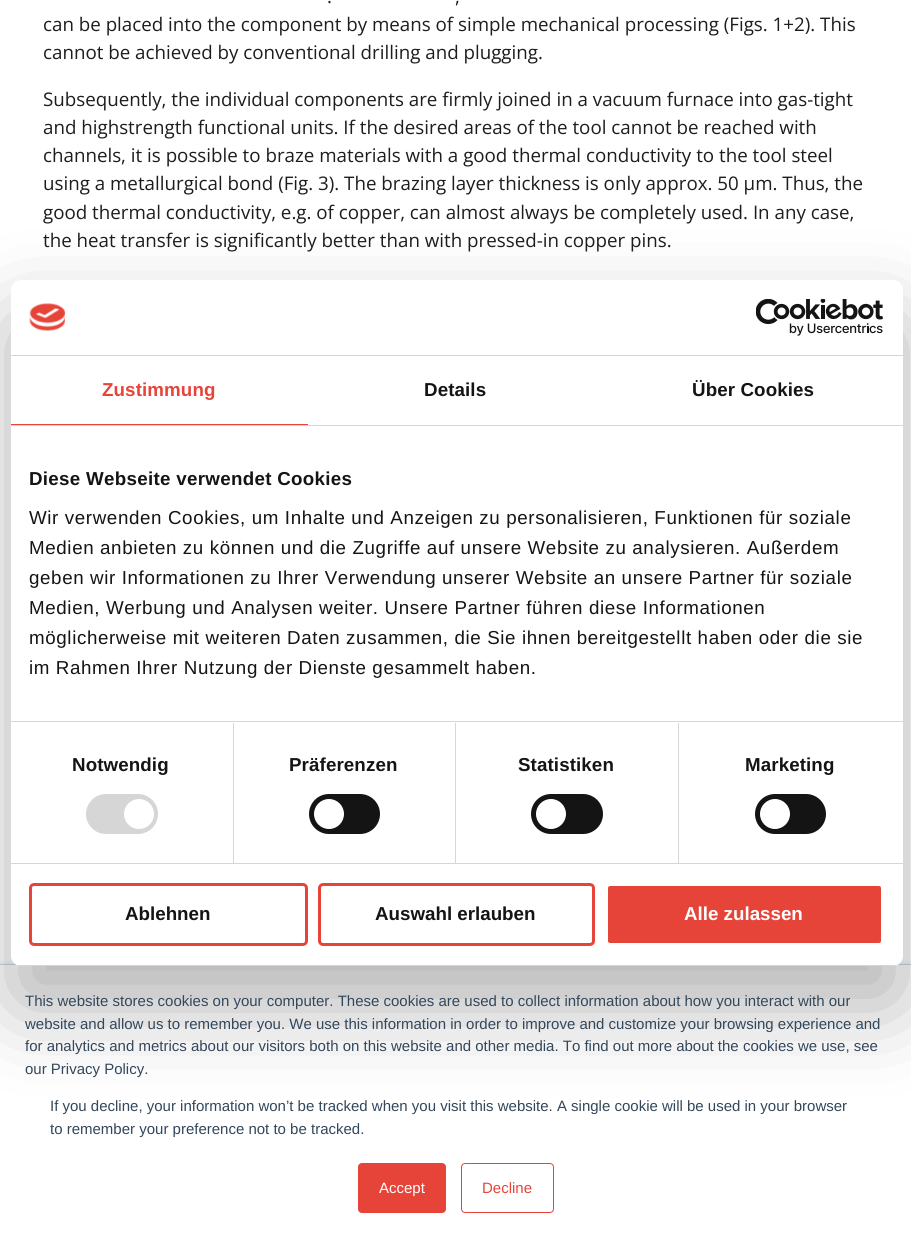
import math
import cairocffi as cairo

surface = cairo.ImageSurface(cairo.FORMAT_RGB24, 911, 1245)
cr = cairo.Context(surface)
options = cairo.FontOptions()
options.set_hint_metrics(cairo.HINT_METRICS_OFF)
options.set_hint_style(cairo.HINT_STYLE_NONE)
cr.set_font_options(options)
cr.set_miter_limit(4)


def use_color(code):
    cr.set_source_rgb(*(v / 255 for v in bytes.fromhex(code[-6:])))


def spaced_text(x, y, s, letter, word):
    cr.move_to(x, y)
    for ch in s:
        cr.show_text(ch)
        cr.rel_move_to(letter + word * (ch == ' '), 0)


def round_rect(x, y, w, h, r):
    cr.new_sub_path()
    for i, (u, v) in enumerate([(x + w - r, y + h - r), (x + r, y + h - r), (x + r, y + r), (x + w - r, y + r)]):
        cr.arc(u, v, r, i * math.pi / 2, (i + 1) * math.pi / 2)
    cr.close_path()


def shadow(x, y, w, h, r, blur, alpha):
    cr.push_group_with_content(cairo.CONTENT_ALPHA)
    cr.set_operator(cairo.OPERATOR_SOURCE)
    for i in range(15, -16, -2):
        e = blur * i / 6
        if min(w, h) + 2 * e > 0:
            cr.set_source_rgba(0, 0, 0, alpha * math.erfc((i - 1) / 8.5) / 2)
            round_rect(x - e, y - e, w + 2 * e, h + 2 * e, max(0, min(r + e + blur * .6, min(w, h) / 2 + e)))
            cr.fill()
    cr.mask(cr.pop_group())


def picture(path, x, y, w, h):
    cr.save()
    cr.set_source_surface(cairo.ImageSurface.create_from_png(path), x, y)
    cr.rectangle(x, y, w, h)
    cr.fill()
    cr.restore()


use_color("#ffffff")
cr.paint()
cr.select_font_face("Open Sans")
cr.set_font_size(18.75)
use_color("#1d1d1b")
cr.move_to(327, 3)
cr.show_text(".")
cr.move_to(455, 3)
cr.show_text(",")
cr.move_to(43, 31)
cr.show_text("can be placed into the component by means of simple mechanical processing (Figs. 1+2). This")
cr.move_to(43, 59)
cr.show_text("cannot be achieved by conventional drilling and plugging.")
cr.move_to(43, 106)
cr.show_text("Subsequently, the individual components are firmly joined in a vacuum furnace into gas-tight")
cr.move_to(43, 134)
cr.show_text("and highstrength functional units. If the desired areas of the tool cannot be reached with")
cr.move_to(43, 162)
cr.show_text("channels, it is possible to braze materials with a good thermal conductivity to the tool steel")
cr.move_to(43, 190)
cr.show_text("using a metallurgical bond (Fig. 3). The brazing layer thickness is only approx. 50 μm. Thus, the")
cr.move_to(43, 219)
cr.show_text("good thermal conductivity, e.g. of copper, can almost always be completely used. In any case,")
cr.move_to(43, 247)
cr.show_text("the heat transfer is significantly better than with pressed-in copper pins.")
use_color("#eaf0f6")
shadow(0, 963, 911, 281, 0, 2, 1)
use_color("#ffffff")
cr.rectangle(0, 965, 911, 280)
cr.fill()
use_color("#cbd6e2")
cr.rectangle(0, 964, 911, 1)
cr.fill()
use_color("#000000")
shadow(11, 320, 892, 686, 10, 42.5, 0.3)
use_color("#ffffff")
round_rect(11, 280, 892, 686, 10)
cr.fill()
use_color("#d6d6d6")
cr.rectangle(11, 355, 892, 1)
cr.fill()
picture("img1.png", 29, 303, 37, 28)
picture("img2.png", 756, 299, 127, 37)
cr.rectangle(11, 425, 892, 1)
cr.fill()
use_color("#e64439")
cr.rectangle(11, 424, 297, 1)
cr.fill()
cr.select_font_face("Liberation Sans", cairo.FONT_SLANT_NORMAL, cairo.FONT_WEIGHT_BOLD)
spaced_text(102, 396, "Zustimmung", 0.1, 0)
use_color("#141414")
spaced_text(424, 396, "Details", 0.1, 0)
spaced_text(692, 396, "Über Cookies", 0.1, 0)
use_color("#d6d6d6")
cr.rectangle(11, 721, 892, 1)
cr.fill()
use_color("#141414")
spaced_text(29, 485, "Diese Webseite verwendet Cookies", 0.3, 0)
cr.select_font_face("Liberation Sans")
spaced_text(29, 524, "Wir verwenden Cookies, um Inhalte und Anzeigen zu personalisieren, Funktionen für soziale", 0.62, 0)
spaced_text(29, 554, "Medien anbieten zu können und die Zugriffe auf unsere Website zu analysieren. Außerdem", 0.62, 0)
spaced_text(29, 584, "geben wir Informationen zu Ihrer Verwendung unserer Website an unsere Partner für soziale", 0.62, 0)
spaced_text(29, 614, "Medien, Werbung und Analysen weiter. Unsere Partner führen diese Informationen", 0.62, 0)
spaced_text(29, 644, "möglicherweise mit weiteren Daten zusammen, die Sie ihnen bereitgestellt haben oder die sie", 0.62, 0)
spaced_text(29, 674, "im Rahmen Ihrer Nutzung der Dienste gesammelt haben.", 0.62, 0)
use_color("#d6d6d6")
cr.rectangle(11, 863, 892, 1)
cr.fill()
cr.rectangle(233, 723, 1, 140)
cr.fill()
cr.select_font_face("Liberation Sans", cairo.FONT_SLANT_NORMAL, cairo.FONT_WEIGHT_BOLD)
use_color("#141414")
spaced_text(72, 771, "Notwendig", 0.1, 0)
use_color("#d6d6d6")
round_rect(86, 794, 72, 40, 20)
cr.fill()
use_color("#ffffff")
cr.arc(139, 814, 15, 0, 2 * math.pi)
cr.fill()
use_color("#d6d6d6")
cr.rectangle(455, 723, 1, 140)
cr.fill()
use_color("#141414")
spaced_text(289, 771, "Präferenzen", 0.1, 0)
round_rect(309, 794, 71, 40, 20)
cr.fill()
use_color("#ffffff")
cr.arc(329, 814, 15, 0, 2 * math.pi)
cr.fill()
use_color("#d6d6d6")
cr.rectangle(678, 723, 1, 140)
cr.fill()
use_color("#141414")
spaced_text(518, 771, "Statistiken", 0.1, 0)
round_rect(531, 794, 72, 40, 20)
cr.fill()
use_color("#ffffff")
cr.arc(551, 814, 15, 0, 2 * math.pi)
cr.fill()
use_color("#141414")
spaced_text(745, 771, "Marketing", 0.1, 0)
round_rect(755, 794, 71, 40, 20)
cr.fill()
use_color("#ffffff")
cr.arc(775, 814, 15, 0, 2 * math.pi)
cr.fill()
cr.save()
round_rect(11, 280, 892, 686, 10)
cr.clip()
use_color("#d6d6d6")
cr.rectangle(11, 965, 892, 1)
cr.fill()
cr.restore()
round_rect(30.5, 884.5, 276, 60, 3.5)
use_color("#e64439")
cr.set_line_width(3)
cr.stroke()
use_color("#141414")
cr.move_to(125, 920)
cr.show_text("Ablehnen")
round_rect(319.5, 884.5, 274, 60, 3.5)
use_color("#e64439")
cr.stroke()
use_color("#141414")
cr.move_to(375, 920)
cr.show_text("Auswahl erlauben")
use_color("#e64439")
round_rect(606.5, 884.5, 276, 60, 3.5)
cr.fill_preserve()
use_color("#ffffff")
cr.stroke()
cr.move_to(684, 920)
cr.show_text("Alle zulassen")
cr.select_font_face("Liberation Sans")
cr.set_font_size(15)
use_color("#33475b")
cr.move_to(25, 1006)
cr.show_text("This website stores cookies on your computer. These cookies are used to collect information about how you interact with our")
cr.move_to(25, 1029)
cr.show_text("website and allow us to remember you. We use this information in order to improve and customize your browsing experience and")
cr.move_to(25, 1051)
cr.show_text("for analytics and metrics about our visitors both on this website and other media. To find out more about the cookies we use, see")
cr.move_to(25, 1074)
cr.show_text("our Privacy Policy.")
cr.move_to(50, 1111)
cr.show_text("If you decline, your information won’t be tracked when you visit this website. A single cookie will be used in your browser")
cr.move_to(50, 1134)
cr.show_text("to remember your preference not to be tracked.")
use_color("#e64439")
round_rect(358.5, 1163.5, 87, 49, 3.5)
cr.fill_preserve()
cr.set_line_width(1)
cr.stroke()
use_color("#ffffff")
cr.move_to(379, 1193)
cr.show_text("Accept")
round_rect(461.5, 1163.5, 92, 49, 3.5)
use_color("#e64439")
cr.stroke()
cr.move_to(482, 1193)
cr.show_text("Decline")
surface.write_to_png("result.png")
